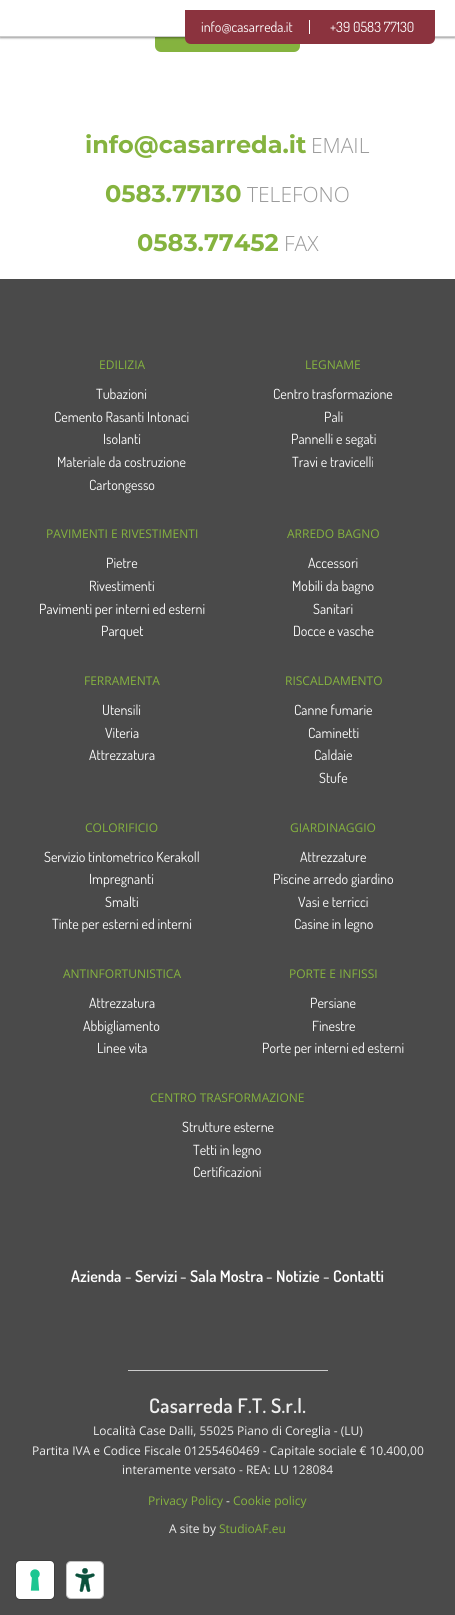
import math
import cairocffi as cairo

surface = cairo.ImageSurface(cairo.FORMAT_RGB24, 455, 1615)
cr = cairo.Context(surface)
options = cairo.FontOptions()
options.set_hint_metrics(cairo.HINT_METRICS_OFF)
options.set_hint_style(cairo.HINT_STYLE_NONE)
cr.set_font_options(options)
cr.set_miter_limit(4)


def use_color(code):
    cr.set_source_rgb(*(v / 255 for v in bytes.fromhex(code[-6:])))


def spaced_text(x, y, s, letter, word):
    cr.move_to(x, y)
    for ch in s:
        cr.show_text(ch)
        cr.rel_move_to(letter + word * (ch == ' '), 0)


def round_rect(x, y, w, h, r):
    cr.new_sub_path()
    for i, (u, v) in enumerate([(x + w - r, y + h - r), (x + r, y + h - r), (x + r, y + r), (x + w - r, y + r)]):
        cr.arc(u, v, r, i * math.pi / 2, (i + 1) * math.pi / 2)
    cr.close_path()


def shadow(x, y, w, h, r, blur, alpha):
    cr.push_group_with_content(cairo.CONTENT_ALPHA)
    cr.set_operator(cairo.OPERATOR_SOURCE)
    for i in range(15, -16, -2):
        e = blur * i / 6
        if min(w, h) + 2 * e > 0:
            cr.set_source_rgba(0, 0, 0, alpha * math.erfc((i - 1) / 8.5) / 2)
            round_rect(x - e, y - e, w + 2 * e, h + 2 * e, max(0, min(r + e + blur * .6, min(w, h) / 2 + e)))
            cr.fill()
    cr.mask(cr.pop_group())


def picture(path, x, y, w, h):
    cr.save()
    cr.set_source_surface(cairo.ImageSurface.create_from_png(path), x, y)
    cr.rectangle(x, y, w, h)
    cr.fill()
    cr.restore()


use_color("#ffffff")
cr.paint()
use_color("#85b33f")
round_rect(155, 26, 145, 26, 6)
cr.fill()
use_color("#000000")
shadow(0, 1, 455, 37, 0, 1, 0.4)
use_color("#ffffff")
cr.rectangle(0, 0, 455, 36)
cr.fill()
use_color("#cccccc")
cr.rectangle(0, 36, 455, 1)
cr.fill()
use_color("#8b333e")
cr.new_path()
cr.move_to(185, 10)
cr.line_to(435, 10)
cr.line_to(435, 38)
cr.curve_to(435, 41.5, 432.5, 44, 429, 44)
cr.line_to(191, 44)
cr.curve_to(187.5, 44, 185, 41.5, 185, 38)
cr.close_path()
cr.fill()
use_color("#ffffff")
cr.rectangle(309, 20, 1, 14)
cr.fill()
cr.select_font_face("Dosis")
cr.set_font_size(14)
cr.move_to(201, 32)
cr.show_text("info@casarreda.it")
cr.move_to(330, 32)
cr.show_text("+39 0583 77130")
cr.select_font_face("Montserrat Thin")
cr.set_font_size(24)
use_color("#85b33f")
cr.move_to(85, 153)
cr.show_text("info@casarreda.it")
cr.select_font_face("Open Sans Light")
cr.set_font_size(21)
use_color("#999999")
cr.move_to(311, 153)
cr.show_text("EMAIL")
cr.select_font_face("Montserrat Thin")
cr.set_font_size(24)
use_color("#85b33f")
cr.move_to(105, 202)
cr.show_text("0583.77130")
cr.select_font_face("Open Sans Light")
cr.set_font_size(21)
use_color("#999999")
cr.move_to(247, 202)
cr.show_text("TELEFONO")
cr.select_font_face("Montserrat Thin")
cr.set_font_size(24)
use_color("#85b33f")
cr.move_to(137, 251)
cr.show_text("0583.77452")
cr.select_font_face("Open Sans Light")
cr.set_font_size(21)
use_color("#999999")
cr.move_to(284, 251)
cr.show_text("FAX")
use_color("#4a4a4a")
cr.rectangle(0, 279, 455, 1336)
cr.fill()
cr.select_font_face("Open Sans")
cr.set_font_size(12)
use_color("#85b33f")
cr.move_to(99, 369)
cr.show_text("EDILIZIA")
cr.select_font_face("Dosis")
cr.set_font_size(14)
use_color("#ffffff")
cr.move_to(96, 399)
cr.show_text("Tubazioni")
cr.move_to(54, 422)
cr.show_text("Cemento Rasanti Intonaci")
cr.move_to(103, 444)
cr.show_text("Isolanti")
cr.move_to(57, 467)
cr.show_text("Materiale da costruzione")
cr.move_to(89, 490)
cr.show_text("Cartongesso")
cr.select_font_face("Open Sans")
cr.set_font_size(12)
use_color("#85b33f")
cr.move_to(305, 369)
cr.show_text("LEGNAME")
cr.select_font_face("Dosis")
cr.set_font_size(14)
use_color("#ffffff")
cr.move_to(273, 399)
cr.show_text("Centro trasformazione")
cr.move_to(324, 422)
cr.show_text("Pali")
cr.move_to(291, 444)
cr.show_text("Pannelli e segati")
cr.move_to(292, 467)
cr.show_text("Travi e travicelli")
cr.select_font_face("Open Sans")
cr.set_font_size(12)
use_color("#85b33f")
cr.move_to(46, 538)
cr.show_text("PAVIMENTI E RIVESTIMENTI")
cr.select_font_face("Dosis")
cr.set_font_size(14)
use_color("#ffffff")
cr.move_to(106, 568)
cr.show_text("Pietre")
cr.move_to(89, 591)
cr.show_text("Rivestimenti")
cr.move_to(39, 614)
cr.show_text("Pavimenti per interni ed esterni")
cr.move_to(101, 636)
cr.show_text("Parquet")
cr.select_font_face("Open Sans")
cr.set_font_size(12)
use_color("#85b33f")
cr.move_to(287, 538)
cr.show_text("ARREDO BAGNO")
cr.select_font_face("Dosis")
cr.set_font_size(14)
use_color("#ffffff")
cr.move_to(308, 568)
cr.show_text("Accessori")
cr.move_to(292, 591)
cr.show_text("Mobili da bagno")
cr.move_to(313, 614)
cr.show_text("Sanitari")
cr.move_to(293, 636)
cr.show_text("Docce e vasche")
cr.select_font_face("Open Sans")
cr.set_font_size(12)
use_color("#85b33f")
cr.move_to(84, 685)
cr.show_text("FERRAMENTA")
cr.select_font_face("Dosis")
cr.set_font_size(14)
use_color("#ffffff")
cr.move_to(102, 715)
cr.show_text("Utensili")
cr.move_to(105, 738)
cr.show_text("Viteria")
cr.move_to(89, 760)
cr.show_text("Attrezzatura")
cr.select_font_face("Open Sans")
cr.set_font_size(12)
use_color("#85b33f")
cr.move_to(285, 685)
cr.show_text("RISCALDAMENTO")
cr.select_font_face("Dosis")
cr.set_font_size(14)
use_color("#ffffff")
cr.move_to(294, 715)
cr.show_text("Canne fumarie")
cr.move_to(308, 738)
cr.show_text("Caminetti")
cr.move_to(314, 760)
cr.show_text("Caldaie")
cr.move_to(319, 783)
cr.show_text("Stufe")
cr.select_font_face("Open Sans")
cr.set_font_size(12)
use_color("#85b33f")
cr.move_to(85, 832)
cr.show_text("COLORIFICIO")
cr.select_font_face("Dosis")
cr.set_font_size(14)
use_color("#ffffff")
cr.move_to(44, 862)
cr.show_text("Servizio tintometrico Kerakoll")
cr.move_to(89, 884)
cr.show_text("Impregnanti")
cr.move_to(105, 907)
cr.show_text("Smalti")
cr.move_to(52, 929)
cr.show_text("Tinte per esterni ed interni")
cr.select_font_face("Open Sans")
cr.set_font_size(12)
use_color("#85b33f")
cr.move_to(290, 832)
cr.show_text("GIARDINAGGIO")
cr.select_font_face("Dosis")
cr.set_font_size(14)
use_color("#ffffff")
cr.move_to(300, 862)
cr.show_text("Attrezzature")
cr.move_to(273, 884)
cr.show_text("Piscine arredo giardino")
cr.move_to(298, 907)
cr.show_text("Vasi e terricci")
cr.move_to(294, 929)
cr.show_text("Casine in legno")
cr.select_font_face("Open Sans")
cr.set_font_size(12)
use_color("#85b33f")
cr.move_to(63, 978)
cr.show_text("ANTINFORTUNISTICA")
cr.select_font_face("Dosis")
cr.set_font_size(14)
use_color("#ffffff")
cr.move_to(89, 1008)
cr.show_text("Attrezzatura")
cr.move_to(83, 1031)
cr.show_text("Abbigliamento")
cr.move_to(97, 1053)
cr.show_text("Linee vita")
cr.select_font_face("Open Sans")
cr.set_font_size(12)
use_color("#85b33f")
cr.move_to(289, 978)
cr.show_text("PORTE E INFISSI")
cr.select_font_face("Dosis")
cr.set_font_size(14)
use_color("#ffffff")
cr.move_to(310, 1008)
cr.show_text("Persiane")
cr.move_to(312, 1031)
cr.show_text("Finestre")
cr.move_to(262, 1053)
cr.show_text("Porte per interni ed esterni")
cr.select_font_face("Open Sans")
cr.set_font_size(12)
use_color("#85b33f")
cr.move_to(150, 1102)
cr.show_text("CENTRO TRASFORMAZIONE")
cr.select_font_face("Dosis")
cr.set_font_size(14)
use_color("#ffffff")
cr.move_to(182, 1132)
cr.show_text("Strutture esterne")
cr.move_to(193, 1155)
cr.show_text("Tetti in legno")
cr.move_to(193, 1177)
cr.show_text("Certificazioni")
cr.select_font_face("Dosis SemiBold")
cr.set_font_size(16)
cr.move_to(71, 1282)
cr.show_text("Azienda")
use_color("#cccccc")
cr.move_to(125, 1282)
cr.show_text("-")
use_color("#ffffff")
cr.move_to(135, 1282)
cr.show_text("Servizi")
use_color("#cccccc")
cr.move_to(180, 1282)
cr.show_text("-")
use_color("#ffffff")
cr.move_to(190, 1282)
cr.show_text("Sala Mostra")
use_color("#cccccc")
cr.move_to(266, 1282)
cr.show_text("-")
use_color("#ffffff")
cr.move_to(276, 1282)
cr.show_text("Notizie")
use_color("#cccccc")
cr.move_to(323, 1282)
cr.show_text("-")
use_color("#ffffff")
cr.move_to(333, 1282)
cr.show_text("Contatti")
use_color("#cccccc")
cr.rectangle(128, 1370, 200, 1)
cr.fill()
cr.set_font_size(20)
use_color("#eeeeee")
spaced_text(149, 1413, "Casarreda F.T. S.r.l.", 0.4, 0)
cr.select_font_face("Open Sans")
cr.set_font_size(12)
cr.move_to(93, 1435)
cr.show_text("Località Case Dalli, 55025 Piano di Coreglia - (LU)")
cr.move_to(32, 1455)
cr.show_text("Partita IVA e Codice Fiscale 01255460469 - Capitale sociale € 10.400,00")
cr.move_to(122, 1474)
cr.show_text("interamente versato - REA: LU 128084")
use_color("#85b33f")
cr.move_to(148, 1505)
cr.show_text("Privacy Policy")
use_color("#eeeeee")
cr.move_to(226, 1505)
cr.show_text("-")
use_color("#85b33f")
cr.move_to(233, 1505)
cr.show_text("Cookie policy")
use_color("#eeeeee")
cr.move_to(169, 1533)
cr.show_text("A site by")
use_color("#85b33f")
cr.move_to(219, 1533)
cr.show_text("StudioAF.eu")
round_rect(15.5, 1560.5, 39, 39, 4.5)
use_color("#3f3f3f")
cr.set_line_width(1)
cr.stroke()
use_color("#ffffff")
round_rect(16, 1561, 38, 38, 4)
cr.fill()
picture("img1.png", 30, 1569, 10, 22)
round_rect(66, 1561, 38, 38, 5)
cr.fill()
picture("img2.png", 75, 1568, 20, 24)
round_rect(66.5, 1561.5, 37, 37, 4.5)
cr.set_source_rgba(0, 0, 0, 0.24)
cr.stroke()
surface.write_to_png("result.png")
